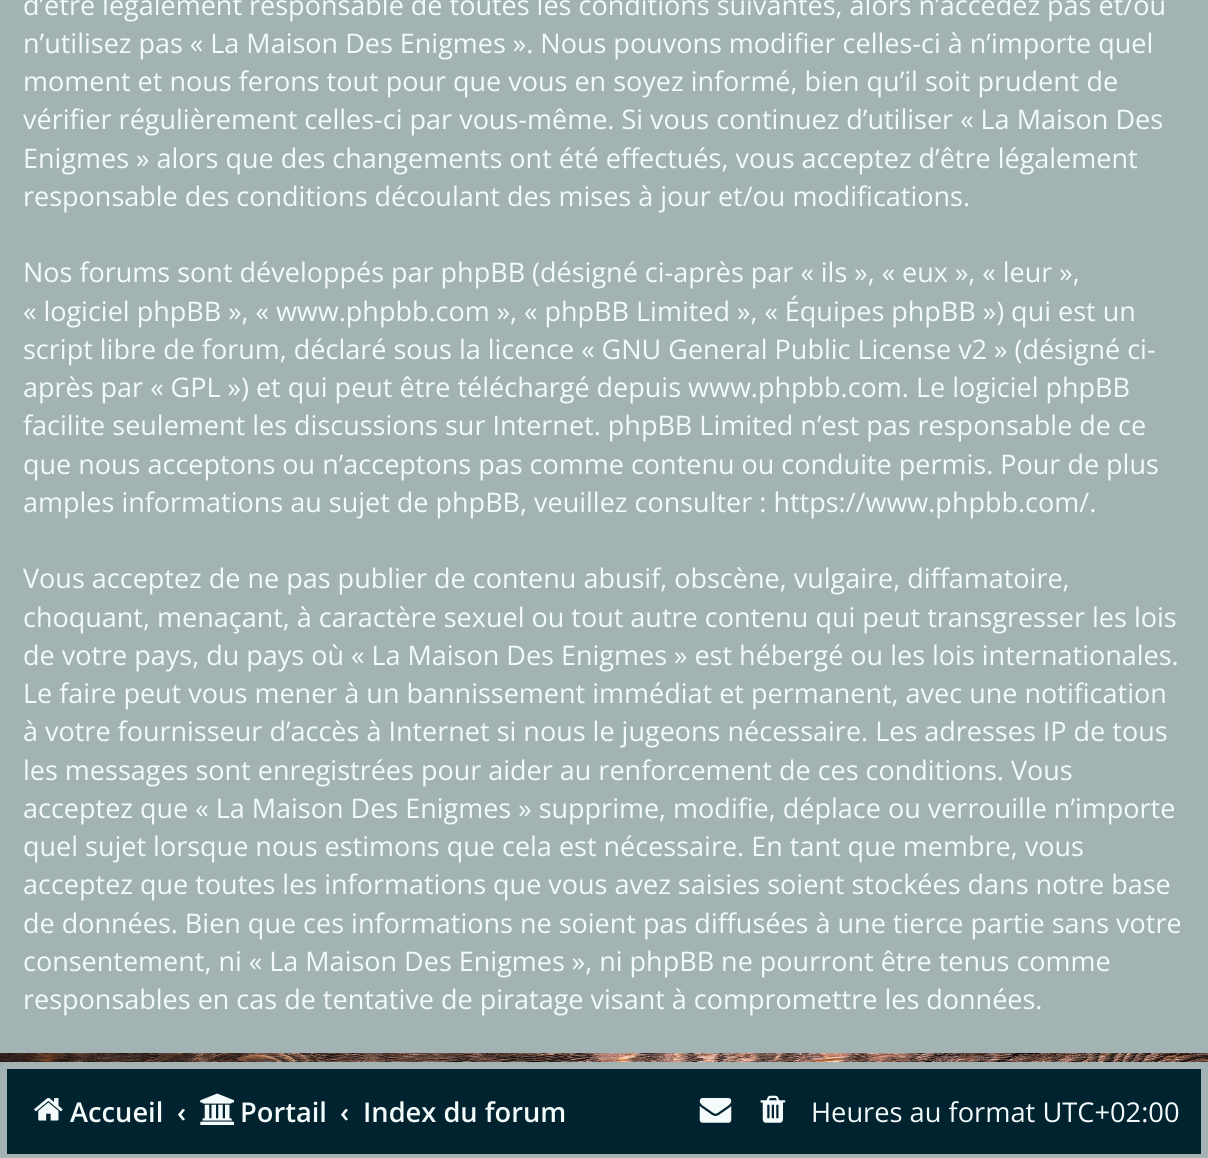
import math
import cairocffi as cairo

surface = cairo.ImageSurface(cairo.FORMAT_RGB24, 1208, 1158)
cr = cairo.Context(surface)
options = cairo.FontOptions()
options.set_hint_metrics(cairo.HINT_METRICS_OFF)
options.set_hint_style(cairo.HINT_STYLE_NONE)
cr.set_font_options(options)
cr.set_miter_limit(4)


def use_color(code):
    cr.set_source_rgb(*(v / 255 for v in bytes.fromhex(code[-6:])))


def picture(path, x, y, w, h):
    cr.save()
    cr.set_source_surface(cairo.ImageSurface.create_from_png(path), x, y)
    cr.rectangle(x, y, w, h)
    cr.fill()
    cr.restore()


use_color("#ffffff")
cr.paint()
picture("img1.png", 0, 1053, 1208, 9)
use_color("#a3b3b3")
cr.rectangle(0, 0, 1208, 1053)
cr.fill()
cr.select_font_face("Open Sans")
cr.set_font_size(27)
use_color("#f3fbfb")
cr.move_to(23, 15)
cr.show_text("d’être légalement responsable de toutes les conditions suivantes, alors n’accédez pas et/ou")
cr.move_to(23, 53)
cr.show_text("n’utilisez pas « La Maison Des Enigmes ». Nous pouvons modifier celles-ci à n’importe quel")
cr.move_to(23, 91)
cr.show_text("moment et nous ferons tout pour que vous en soyez informé, bien qu’il soit prudent de")
cr.move_to(23, 129)
cr.show_text("vérifier régulièrement celles-ci par vous-même. Si vous continuez d’utiliser « La Maison Des")
cr.move_to(23, 168)
cr.show_text("Enigmes » alors que des changements ont été effectués, vous acceptez d’être légalement")
cr.move_to(23, 206)
cr.show_text("responsable des conditions découlant des mises à jour et/ou modifications.")
cr.move_to(23, 282)
cr.show_text("Nos forums sont développés par phpBB (désigné ci-après par « ils », « eux », « leur »,")
cr.move_to(23, 321)
cr.show_text("« logiciel phpBB », « www.phpbb.com », « phpBB Limited », « Équipes phpBB ») qui est un")
cr.move_to(23, 359)
cr.show_text("script libre de forum, déclaré sous la licence « GNU General Public License v2 » (désigné ci-")
cr.move_to(23, 397)
cr.show_text("après par « GPL ») et qui peut être téléchargé depuis www.phpbb.com. Le logiciel phpBB")
cr.move_to(23, 435)
cr.show_text("facilite seulement les discussions sur Internet. phpBB Limited n’est pas responsable de ce")
cr.move_to(23, 474)
cr.show_text("que nous acceptons ou n’acceptons pas comme contenu ou conduite permis. Pour de plus")
cr.move_to(23, 512)
cr.show_text("amples informations au sujet de phpBB, veuillez consulter : https://www.phpbb.com/.")
cr.move_to(23, 588)
cr.show_text("Vous acceptez de ne pas publier de contenu abusif, obscène, vulgaire, diffamatoire,")
cr.move_to(23, 627)
cr.show_text("choquant, menaçant, à caractère sexuel ou tout autre contenu qui peut transgresser les lois")
cr.move_to(23, 665)
cr.show_text("de votre pays, du pays où « La Maison Des Enigmes » est hébergé ou les lois internationales.")
cr.move_to(23, 703)
cr.show_text("Le faire peut vous mener à un bannissement immédiat et permanent, avec une notification")
cr.move_to(23, 741)
cr.show_text("à votre fournisseur d’accès à Internet si nous le jugeons nécessaire. Les adresses IP de tous")
cr.move_to(23, 780)
cr.show_text("les messages sont enregistrées pour aider au renforcement de ces conditions. Vous")
cr.move_to(23, 818)
cr.show_text("acceptez que « La Maison Des Enigmes » supprime, modifie, déplace ou verrouille n’importe")
cr.move_to(23, 856)
cr.show_text("quel sujet lorsque nous estimons que cela est nécessaire. En tant que membre, vous")
cr.move_to(23, 894)
cr.show_text("acceptez que toutes les informations que vous avez saisies soient stockées dans notre base")
cr.move_to(23, 933)
cr.show_text("de données. Bien que ces informations ne soient pas diffusées à une tierce partie sans votre")
cr.move_to(23, 971)
cr.show_text("consentement, ni « La Maison Des Enigmes », ni phpBB ne pourront être tenus comme")
cr.move_to(23, 1009)
cr.show_text("responsables en cas de tentative de piratage visant à compromettre les données.")
use_color("#01232f")
cr.rectangle(3.5, 1065.5, 1201, 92)
cr.fill_preserve()
use_color("#a3b3b3")
cr.set_line_width(7)
cr.stroke()
picture("img2.png", 34, 1098, 29, 23)
cr.select_font_face("Open Sans SemiBold")
cr.set_font_size(27.25)
use_color("#f3fbfb")
cr.move_to(70, 1122)
cr.show_text("Accueil")
cr.move_to(177, 1122)
cr.show_text("‹")
picture("img3.png", 200, 1093, 34, 32)
cr.move_to(240, 1122)
cr.show_text("Portail")
cr.move_to(340, 1122)
cr.show_text("‹")
cr.move_to(363, 1122)
cr.show_text("Index du forum")
picture("img4.png", 699, 1098, 33, 25)
picture("img5.png", 760, 1095, 26, 28)
cr.select_font_face("Open Sans")
cr.move_to(811, 1122)
cr.show_text("Heures au format UTC+02:00")
surface.write_to_png("result.png")
